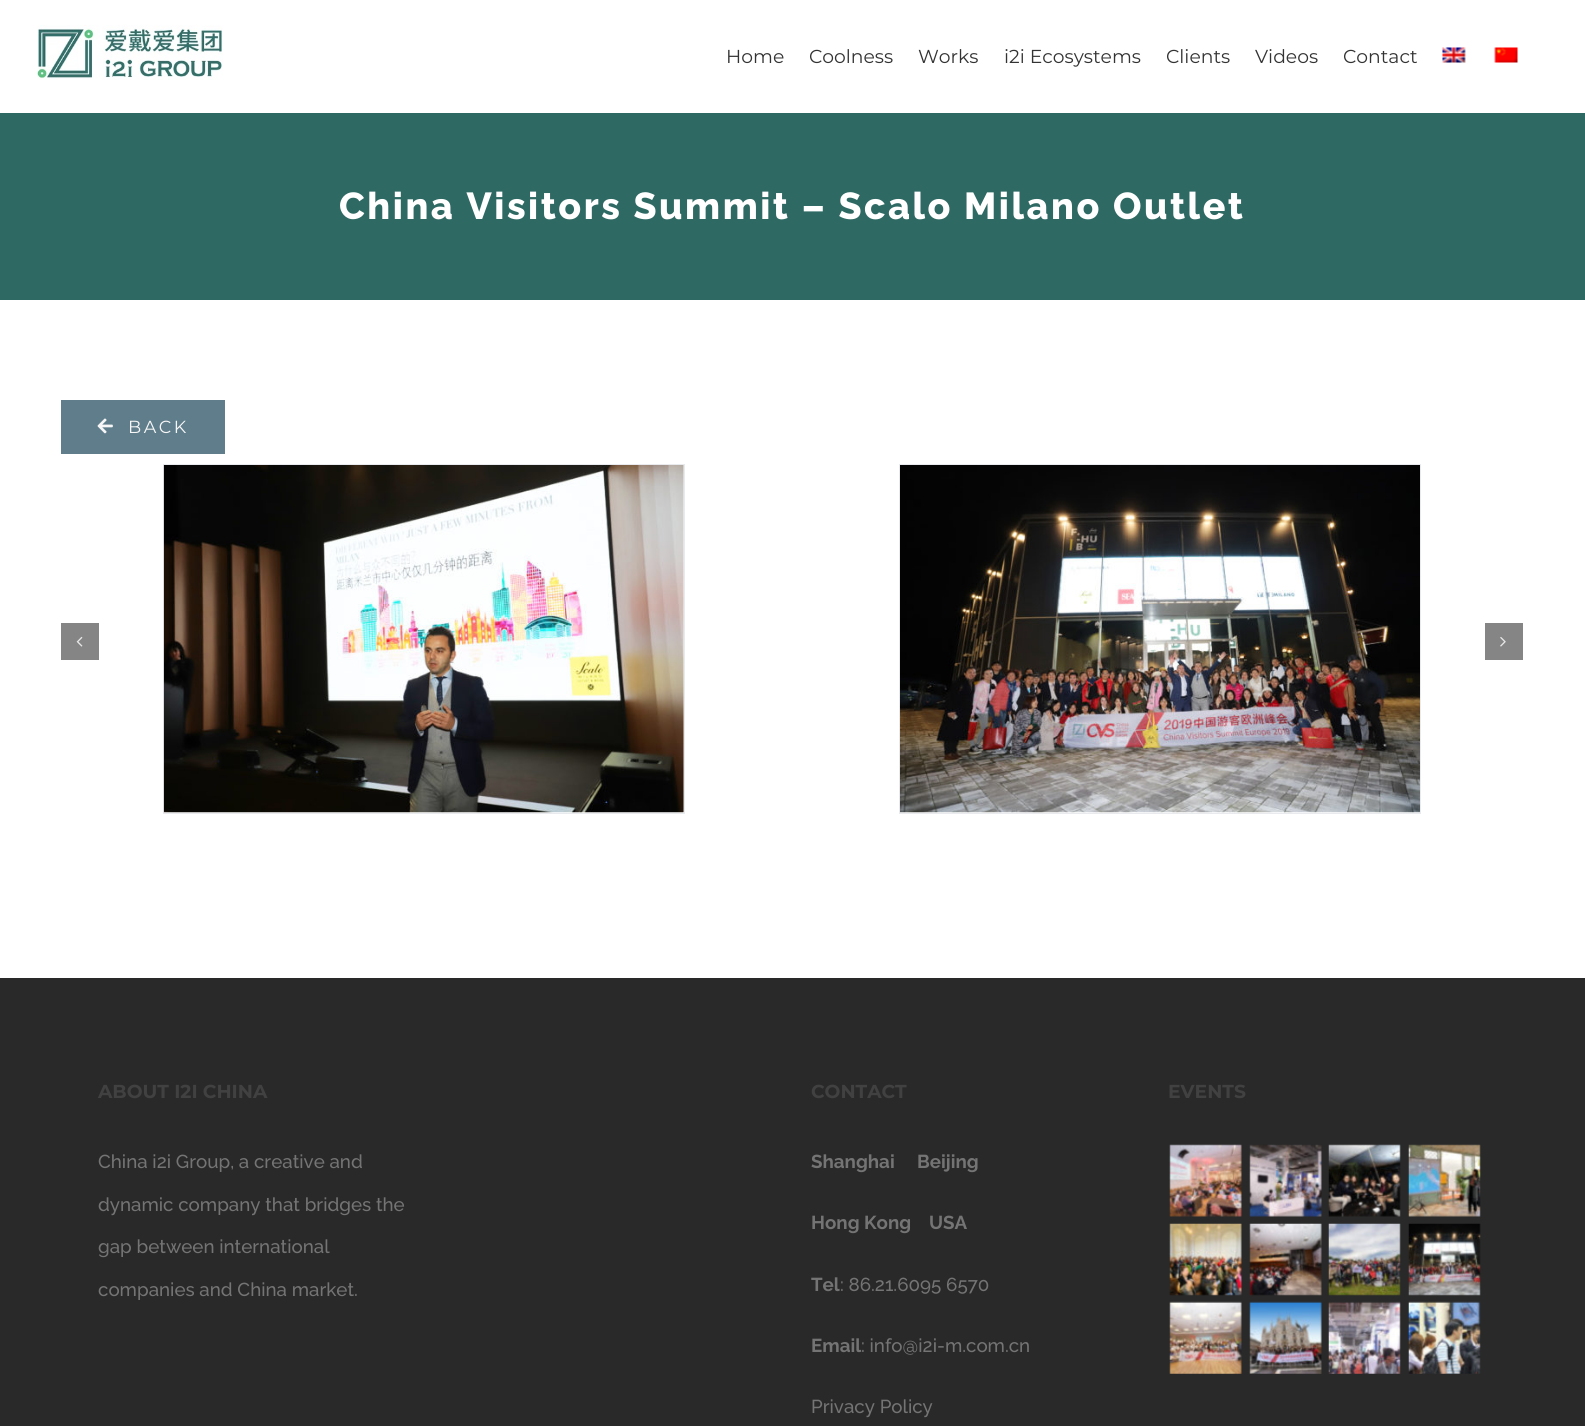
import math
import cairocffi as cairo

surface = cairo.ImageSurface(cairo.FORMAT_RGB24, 1585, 1426)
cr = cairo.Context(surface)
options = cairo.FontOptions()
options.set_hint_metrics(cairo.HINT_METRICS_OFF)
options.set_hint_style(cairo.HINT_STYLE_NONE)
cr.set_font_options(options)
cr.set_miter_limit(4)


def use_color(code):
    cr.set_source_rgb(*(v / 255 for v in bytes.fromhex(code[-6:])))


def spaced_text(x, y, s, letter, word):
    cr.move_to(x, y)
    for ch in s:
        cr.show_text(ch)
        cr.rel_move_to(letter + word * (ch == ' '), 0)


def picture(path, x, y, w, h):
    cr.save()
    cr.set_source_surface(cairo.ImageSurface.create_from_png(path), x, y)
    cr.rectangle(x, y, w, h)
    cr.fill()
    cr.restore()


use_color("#ffffff")
cr.paint()
picture("img1.png", 37, 25, 186, 55)
cr.select_font_face("Montserrat")
cr.set_font_size(18.75)
use_color("#333333")
cr.move_to(726, 63)
cr.show_text("Home")
cr.move_to(809, 63)
cr.show_text("Coolness")
cr.move_to(918, 63)
cr.show_text("Works")
cr.move_to(1004, 63)
cr.show_text("i2i Ecosystems")
cr.move_to(1166, 63)
cr.show_text("Clients")
cr.move_to(1255, 63)
cr.show_text("Videos")
cr.move_to(1343, 63)
cr.show_text("Contact")
picture("img2.png", 1442, 47, 24, 16)
picture("img3.png", 1494, 47, 24, 16)
use_color("#2e6963")
cr.rectangle(0, 113, 1585, 187)
cr.fill()
cr.select_font_face("Raleway ExtraBold")
cr.set_font_size(37.5)
use_color("#ffffff")
spaced_text(339, 219, "China Visitors Summit – Scalo Milano Outlet", 2.5, 0)
use_color("#607d8b")
cr.rectangle(61, 400, 164, 54)
cr.fill()
picture("img4.png", 97, 418, 16, 16)
cr.select_font_face("Montserrat")
cr.set_font_size(17.5)
use_color("#f7f7f7")
spaced_text(128, 433, "BACK", 2.5, 0)
cr.rectangle(163.5, 464.5, 521, 349)
use_color("#e9eaee")
cr.set_line_width(1)
cr.stroke()
picture("img5.png", 163, 465, 521, 348)
cr.rectangle(899.5, 464.5, 521, 349)
cr.stroke()
picture("img6.png", 900, 465, 520, 348)
use_color("#858585")
cr.rectangle(61, 623, 38, 37)
cr.fill()
picture("img7.png", 76, 636, 7, 11)
cr.rectangle(1485, 623, 38, 37)
cr.fill()
picture("img8.png", 1500, 637, 6, 10)
use_color("#292929")
cr.rectangle(0, 978, 1585, 448)
cr.fill()
cr.select_font_face("Montserrat", cairo.FONT_SLANT_NORMAL, cairo.FONT_WEIGHT_BOLD)
cr.set_font_size(18.75)
use_color("#414141")
cr.move_to(98, 1098)
cr.show_text("ABOUT I2I CHINA")
cr.select_font_face("Raleway Medium")
use_color("#747474")
cr.move_to(98, 1168)
cr.show_text("China i2i Group, a creative and")
cr.move_to(98, 1211)
cr.show_text("dynamic company that bridges the")
cr.move_to(98, 1253)
cr.show_text("gap between international")
cr.move_to(98, 1296)
cr.show_text("companies and China market.")
cr.select_font_face("Montserrat", cairo.FONT_SLANT_NORMAL, cairo.FONT_WEIGHT_BOLD)
use_color("#414141")
cr.move_to(811, 1098)
cr.show_text("CONTACT")
cr.select_font_face("Raleway", cairo.FONT_SLANT_NORMAL, cairo.FONT_WEIGHT_BOLD)
use_color("#747474")
cr.move_to(811, 1168)
cr.show_text("Shanghai")
cr.move_to(917, 1168)
cr.show_text("Beijing")
cr.move_to(811, 1229)
cr.show_text("Hong Kong")
cr.move_to(929, 1229)
cr.show_text("USA")
cr.move_to(811, 1291)
cr.show_text("Tel")
cr.select_font_face("Raleway Medium")
cr.move_to(840, 1291)
cr.show_text(": 86.21.6095 6570")
cr.select_font_face("Raleway", cairo.FONT_SLANT_NORMAL, cairo.FONT_WEIGHT_BOLD)
cr.move_to(811, 1352)
cr.show_text("Email")
cr.select_font_face("Raleway Medium")
cr.move_to(861, 1352)
cr.show_text(": info@i2i-m.com.cn")
cr.move_to(811, 1413)
cr.show_text("Privacy Policy")
cr.select_font_face("Montserrat", cairo.FONT_SLANT_NORMAL, cairo.FONT_WEIGHT_BOLD)
use_color("#414141")
cr.move_to(1168, 1098)
cr.show_text("EVENTS")
picture("img9.png", 1169, 1144, 73, 73)
picture("img10.png", 1249, 1144, 73, 73)
picture("img11.png", 1328, 1144, 73, 73)
picture("img12.png", 1408, 1144, 73, 73)
picture("img13.png", 1169, 1223, 73, 73)
picture("img14.png", 1249, 1223, 73, 73)
picture("img15.png", 1328, 1223, 73, 73)
picture("img16.png", 1408, 1223, 73, 73)
picture("img17.png", 1169, 1301, 73, 73)
picture("img18.png", 1249, 1301, 73, 73)
picture("img19.png", 1328, 1301, 73, 73)
picture("img20.png", 1408, 1301, 73, 73)
surface.write_to_png("result.png")
